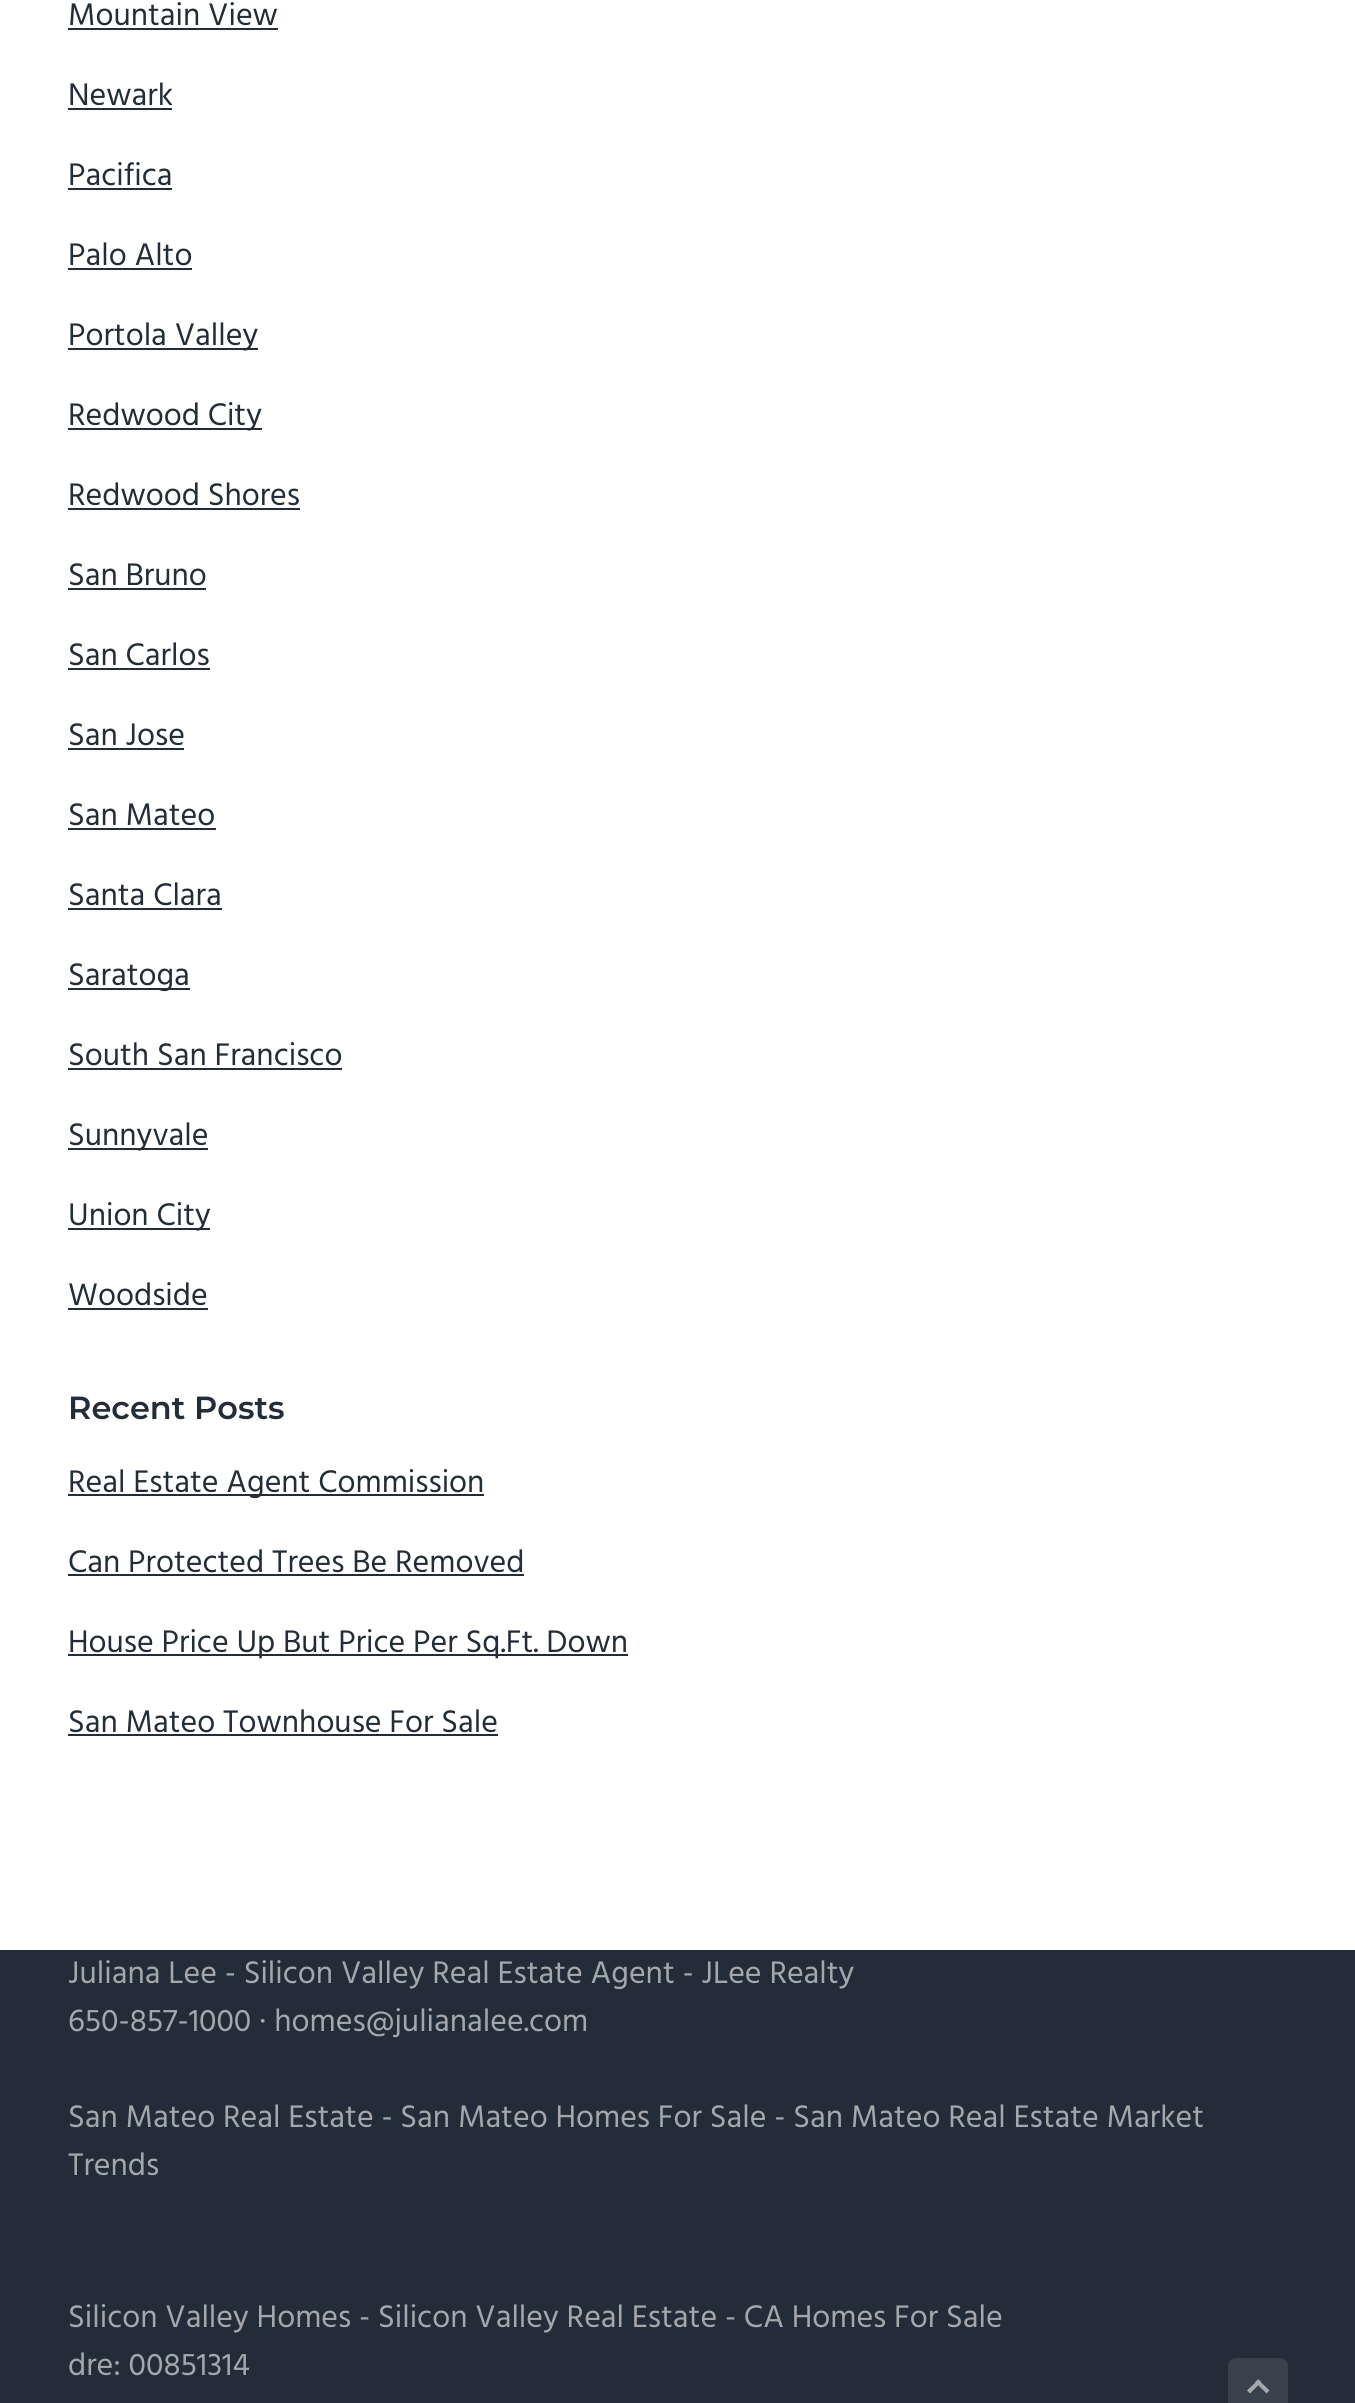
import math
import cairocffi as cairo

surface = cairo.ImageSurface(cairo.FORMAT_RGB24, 1355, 2403)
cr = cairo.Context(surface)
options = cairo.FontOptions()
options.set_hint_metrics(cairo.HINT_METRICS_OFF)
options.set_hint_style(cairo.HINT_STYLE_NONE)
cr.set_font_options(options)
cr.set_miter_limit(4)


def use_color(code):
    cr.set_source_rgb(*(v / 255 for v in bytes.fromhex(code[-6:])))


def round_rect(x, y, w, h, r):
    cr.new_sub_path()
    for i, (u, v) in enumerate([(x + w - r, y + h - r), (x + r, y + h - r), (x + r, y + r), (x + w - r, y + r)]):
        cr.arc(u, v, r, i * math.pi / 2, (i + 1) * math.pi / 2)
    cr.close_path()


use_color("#ffffff")
cr.paint()
cr.select_font_face("Hind")
cr.set_font_size(32)
use_color("#232c39")
cr.move_to(68, 25)
cr.show_text("Mountain View")
cr.rectangle(68, 28, 210, 2)
cr.fill()
cr.move_to(68, 105)
cr.show_text("Newark")
cr.rectangle(68, 108, 104, 2)
cr.fill()
cr.move_to(68, 185)
cr.show_text("Pacifica")
cr.rectangle(68, 188, 104, 2)
cr.fill()
cr.move_to(68, 265)
cr.show_text("Palo Alto")
cr.rectangle(68, 268, 124, 2)
cr.fill()
cr.rectangle(68, 348, 190, 2)
cr.fill()
cr.move_to(68, 345)
cr.show_text("Portola Valley")
cr.rectangle(68, 428, 194, 2)
cr.fill()
cr.move_to(68, 425)
cr.show_text("Redwood City")
cr.move_to(68, 505)
cr.show_text("Redwood Shores")
cr.rectangle(68, 508, 232, 2)
cr.fill()
cr.move_to(68, 585)
cr.show_text("San Bruno")
cr.rectangle(68, 588, 138, 2)
cr.fill()
cr.move_to(68, 665)
cr.show_text("San Carlos")
cr.rectangle(68, 668, 142, 2)
cr.fill()
cr.move_to(68, 745)
cr.show_text("San Jose")
cr.rectangle(68, 748, 116, 2)
cr.fill()
cr.move_to(68, 825)
cr.show_text("San Mateo")
cr.rectangle(68, 828, 148, 2)
cr.fill()
cr.move_to(68, 905)
cr.show_text("Santa Clara")
cr.rectangle(68, 908, 154, 2)
cr.fill()
cr.rectangle(68, 988, 122, 2)
cr.fill()
cr.move_to(68, 985)
cr.show_text("Saratoga")
cr.move_to(68, 1065)
cr.show_text("South San Francisco")
cr.rectangle(68, 1068, 274, 2)
cr.fill()
cr.rectangle(68, 1148, 140, 2)
cr.fill()
cr.move_to(68, 1145)
cr.show_text("Sunnyvale")
cr.rectangle(68, 1228, 142, 2)
cr.fill()
cr.move_to(68, 1225)
cr.show_text("Union City")
cr.move_to(68, 1305)
cr.show_text("Woodside")
cr.rectangle(68, 1308, 140, 2)
cr.fill()
cr.select_font_face("Montserrat Thin")
cr.move_to(68, 1419)
cr.show_text("Recent Posts")
cr.rectangle(68, 1494, 416, 2)
cr.fill()
cr.select_font_face("Hind")
cr.move_to(68, 1492)
cr.show_text("Real Estate Agent Commission")
cr.move_to(68, 1572)
cr.show_text("Can Protected Trees Be Removed")
cr.rectangle(68, 1574, 456, 2)
cr.fill()
cr.rectangle(68, 1654, 560, 2)
cr.fill()
cr.move_to(68, 1652)
cr.show_text("House Price Up But Price Per Sq.Ft. Down")
cr.move_to(68, 1732)
cr.show_text("San Mateo Townhouse For Sale")
cr.rectangle(68, 1734, 430, 2)
cr.fill()
cr.rectangle(0, 1950, 1355, 453)
cr.fill()
use_color("#a4a8ac")
cr.move_to(68, 1983)
cr.show_text("Juliana Lee - Silicon Valley Real Estate Agent - JLee Realty")
cr.move_to(68, 2031)
cr.show_text("650-857-1000 · homes@julianalee.com")
cr.move_to(68, 2127)
cr.show_text("San Mateo Real Estate - San Mateo Homes For Sale - San Mateo Real Estate Market")
cr.move_to(68, 2175)
cr.show_text("Trends")
cr.move_to(68, 2327)
cr.show_text("Silicon Valley Homes - Silicon Valley Real Estate - CA Homes For Sale")
cr.move_to(68, 2375)
cr.show_text("dre: 00851314")
use_color("#39414d")
round_rect(1228, 2358, 60, 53, 8)
cr.fill()
use_color("#a4a8ac")
cr.new_path()
cr.move_to(1247, 2390.5)
cr.line_to(1258.5, 2379.5)
cr.line_to(1261.5, 2382)
cr.line_to(1250, 2393.5)
cr.close_path()
cr.fill()
cr.new_path()
cr.move_to(1258, 2379.5)
cr.line_to(1269.5, 2390.5)
cr.line_to(1266.5, 2393.5)
cr.line_to(1255, 2382)
cr.close_path()
cr.fill()
surface.write_to_png("result.png")
